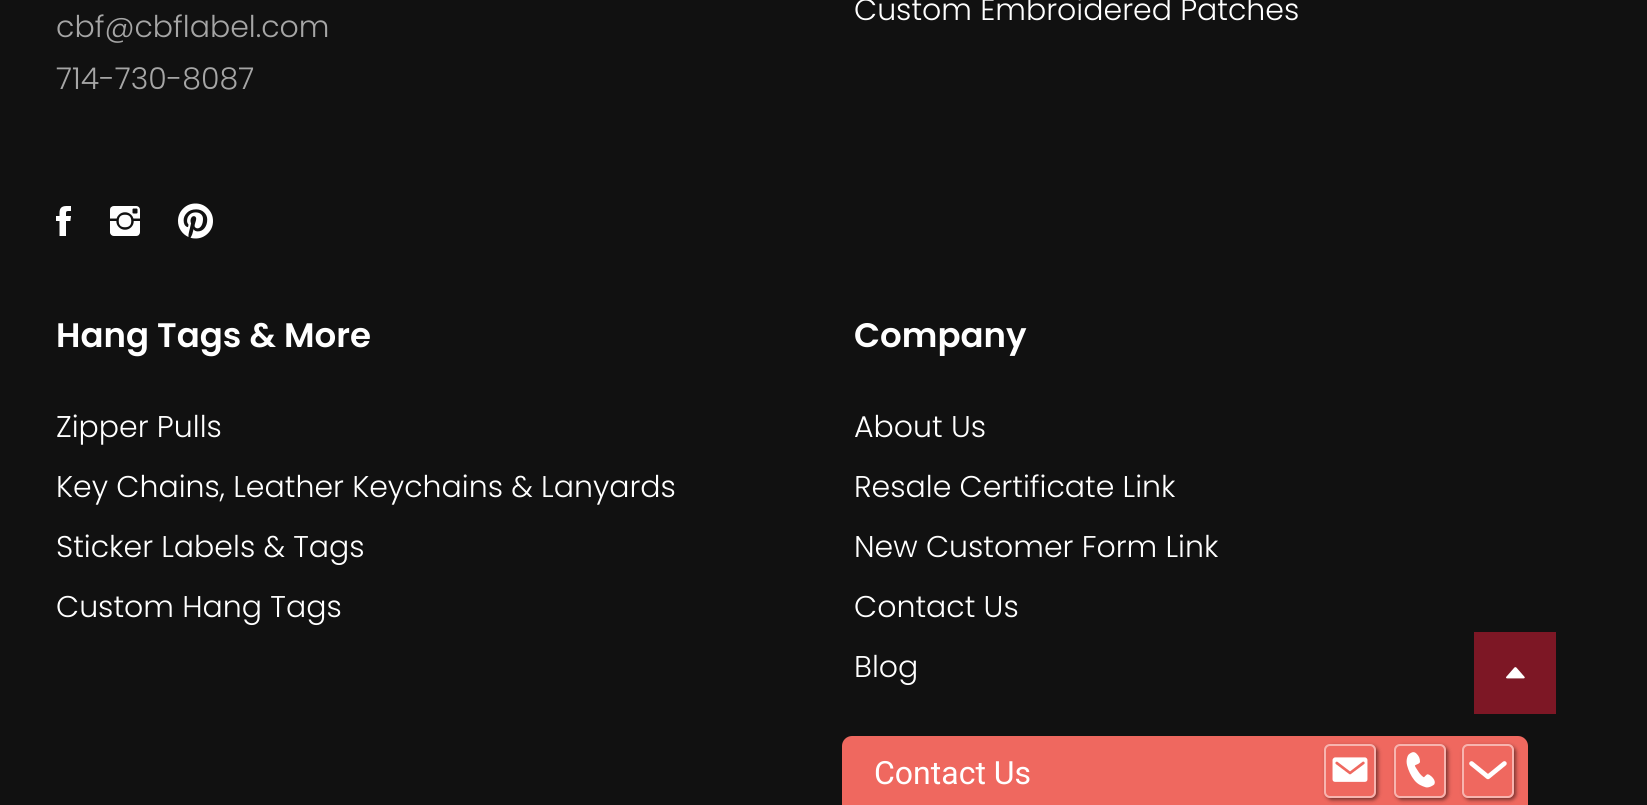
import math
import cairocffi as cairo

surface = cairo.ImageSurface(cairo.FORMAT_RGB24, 1647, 805)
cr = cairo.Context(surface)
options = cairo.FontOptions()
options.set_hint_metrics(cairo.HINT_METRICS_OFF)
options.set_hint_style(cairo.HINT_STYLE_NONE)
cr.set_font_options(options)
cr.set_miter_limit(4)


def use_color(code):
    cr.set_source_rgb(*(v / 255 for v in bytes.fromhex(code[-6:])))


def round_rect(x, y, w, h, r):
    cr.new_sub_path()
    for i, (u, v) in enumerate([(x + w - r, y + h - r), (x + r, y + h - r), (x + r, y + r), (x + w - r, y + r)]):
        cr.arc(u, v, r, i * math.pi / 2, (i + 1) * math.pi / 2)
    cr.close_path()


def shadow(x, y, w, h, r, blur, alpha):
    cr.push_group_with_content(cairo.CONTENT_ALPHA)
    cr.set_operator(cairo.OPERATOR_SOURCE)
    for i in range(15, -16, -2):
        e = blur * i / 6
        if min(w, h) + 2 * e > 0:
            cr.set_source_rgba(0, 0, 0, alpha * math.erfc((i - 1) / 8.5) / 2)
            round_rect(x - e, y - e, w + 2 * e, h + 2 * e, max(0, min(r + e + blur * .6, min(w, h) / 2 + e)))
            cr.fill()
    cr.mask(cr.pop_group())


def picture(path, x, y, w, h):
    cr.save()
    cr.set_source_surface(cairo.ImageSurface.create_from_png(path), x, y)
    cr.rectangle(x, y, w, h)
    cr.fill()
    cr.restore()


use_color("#111111")
cr.paint()
cr.select_font_face("Poppins Light")
cr.set_font_size(30)
use_color("#ffffff")
cr.move_to(854, 20)
cr.show_text("Custom Embroidered Patches")
use_color("#a6a6a6")
cr.move_to(56, 37)
cr.show_text("cbf@cbflabel.com")
cr.move_to(56, 89)
cr.show_text("714-730-8087")
picture("img1.png", 56, 206, 15, 30)
picture("img2.png", 110, 206, 30, 30)
picture("img3.png", 178, 203, 35, 36)
cr.select_font_face("Poppins SemiBold")
cr.set_font_size(34)
use_color("#ffffff")
cr.move_to(56, 347)
cr.show_text("Hang Tags & More")
cr.select_font_face("Poppins Light")
cr.set_font_size(30)
cr.move_to(56, 437)
cr.show_text("Zipper Pulls")
cr.move_to(56, 497)
cr.show_text("Key Chains, Leather Keychains & Lanyards")
cr.move_to(56, 557)
cr.show_text("Sticker Labels & Tags")
cr.move_to(56, 617)
cr.show_text("Custom Hang Tags")
cr.select_font_face("Poppins SemiBold")
cr.set_font_size(34)
cr.move_to(854, 347)
cr.show_text("Company")
cr.select_font_face("Poppins Light")
cr.set_font_size(30)
cr.move_to(854, 437)
cr.show_text("About Us")
cr.move_to(854, 497)
cr.show_text("Resale Certificate Link")
cr.move_to(854, 557)
cr.show_text("New Customer Form Link")
cr.move_to(854, 617)
cr.show_text("Contact Us")
cr.move_to(854, 677)
cr.show_text("Blog")
use_color("#7d1725")
cr.rectangle(1474, 632, 82, 82)
cr.fill()
picture("img4.png", 1506, 667, 19, 12)
use_color("#ef685f")
cr.new_path()
cr.move_to(852, 736)
cr.line_to(1518, 736)
cr.curve_to(1523.5, 736, 1528, 740.5, 1528, 746)
cr.line_to(1528, 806)
cr.line_to(842, 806)
cr.line_to(842, 746)
cr.curve_to(842, 740.5, 846.5, 736, 852, 736)
cr.close_path()
cr.fill()
cr.select_font_face("Roboto")
cr.set_font_size(32)
use_color("#ffffff")
cr.move_to(874, 784)
cr.show_text("Contact Us")
cr.save()
cr.set_fill_rule(cairo.FILL_RULE_EVEN_ODD)
cr.new_path()
cr.move_to(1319, 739)
cr.line_to(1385, 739)
cr.line_to(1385, 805)
cr.line_to(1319, 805)
cr.close_path()
cr.move_to(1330, 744)
cr.line_to(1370, 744)
cr.curve_to(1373.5, 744, 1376, 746.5, 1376, 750)
cr.line_to(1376, 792)
cr.curve_to(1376, 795.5, 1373.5, 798, 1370, 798)
cr.line_to(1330, 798)
cr.curve_to(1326.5, 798, 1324, 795.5, 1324, 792)
cr.line_to(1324, 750)
cr.curve_to(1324, 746.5, 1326.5, 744, 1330, 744)
cr.close_path()
cr.clip()
use_color("#000000")
shadow(1326, 746, 52, 54, 6, 2, 0.5)
cr.restore()
round_rect(1325, 745, 50, 52, 5)
cr.set_source_rgba(1, 1, 1, 0.5)
cr.stroke()
picture("img5.png", 1332, 757, 36, 25)
cr.save()
cr.set_fill_rule(cairo.FILL_RULE_EVEN_ODD)
cr.new_path()
cr.move_to(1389, 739)
cr.line_to(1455, 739)
cr.line_to(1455, 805)
cr.line_to(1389, 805)
cr.close_path()
cr.move_to(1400, 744)
cr.line_to(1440, 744)
cr.curve_to(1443.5, 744, 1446, 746.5, 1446, 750)
cr.line_to(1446, 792)
cr.curve_to(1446, 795.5, 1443.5, 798, 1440, 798)
cr.line_to(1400, 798)
cr.curve_to(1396.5, 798, 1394, 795.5, 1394, 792)
cr.line_to(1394, 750)
cr.curve_to(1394, 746.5, 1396.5, 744, 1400, 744)
cr.close_path()
cr.clip()
use_color("#000000")
shadow(1396, 746, 52, 54, 6, 2, 0.5)
cr.restore()
round_rect(1395, 745, 50, 52, 5)
cr.stroke()
picture("img6.png", 1406, 752, 29, 36)
cr.save()
cr.set_fill_rule(cairo.FILL_RULE_EVEN_ODD)
cr.new_path()
cr.move_to(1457, 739)
cr.line_to(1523, 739)
cr.line_to(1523, 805)
cr.line_to(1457, 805)
cr.close_path()
cr.move_to(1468, 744)
cr.line_to(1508, 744)
cr.curve_to(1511.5, 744, 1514, 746.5, 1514, 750)
cr.line_to(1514, 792)
cr.curve_to(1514, 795.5, 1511.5, 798, 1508, 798)
cr.line_to(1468, 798)
cr.curve_to(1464.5, 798, 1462, 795.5, 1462, 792)
cr.line_to(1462, 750)
cr.curve_to(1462, 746.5, 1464.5, 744, 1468, 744)
cr.close_path()
cr.clip()
use_color("#000000")
shadow(1464, 746, 52, 54, 6, 2, 0.5)
cr.restore()
round_rect(1463, 745, 50, 52, 5)
cr.stroke()
picture("img7.png", 1469, 761, 38, 19)
surface.write_to_png("result.png")
